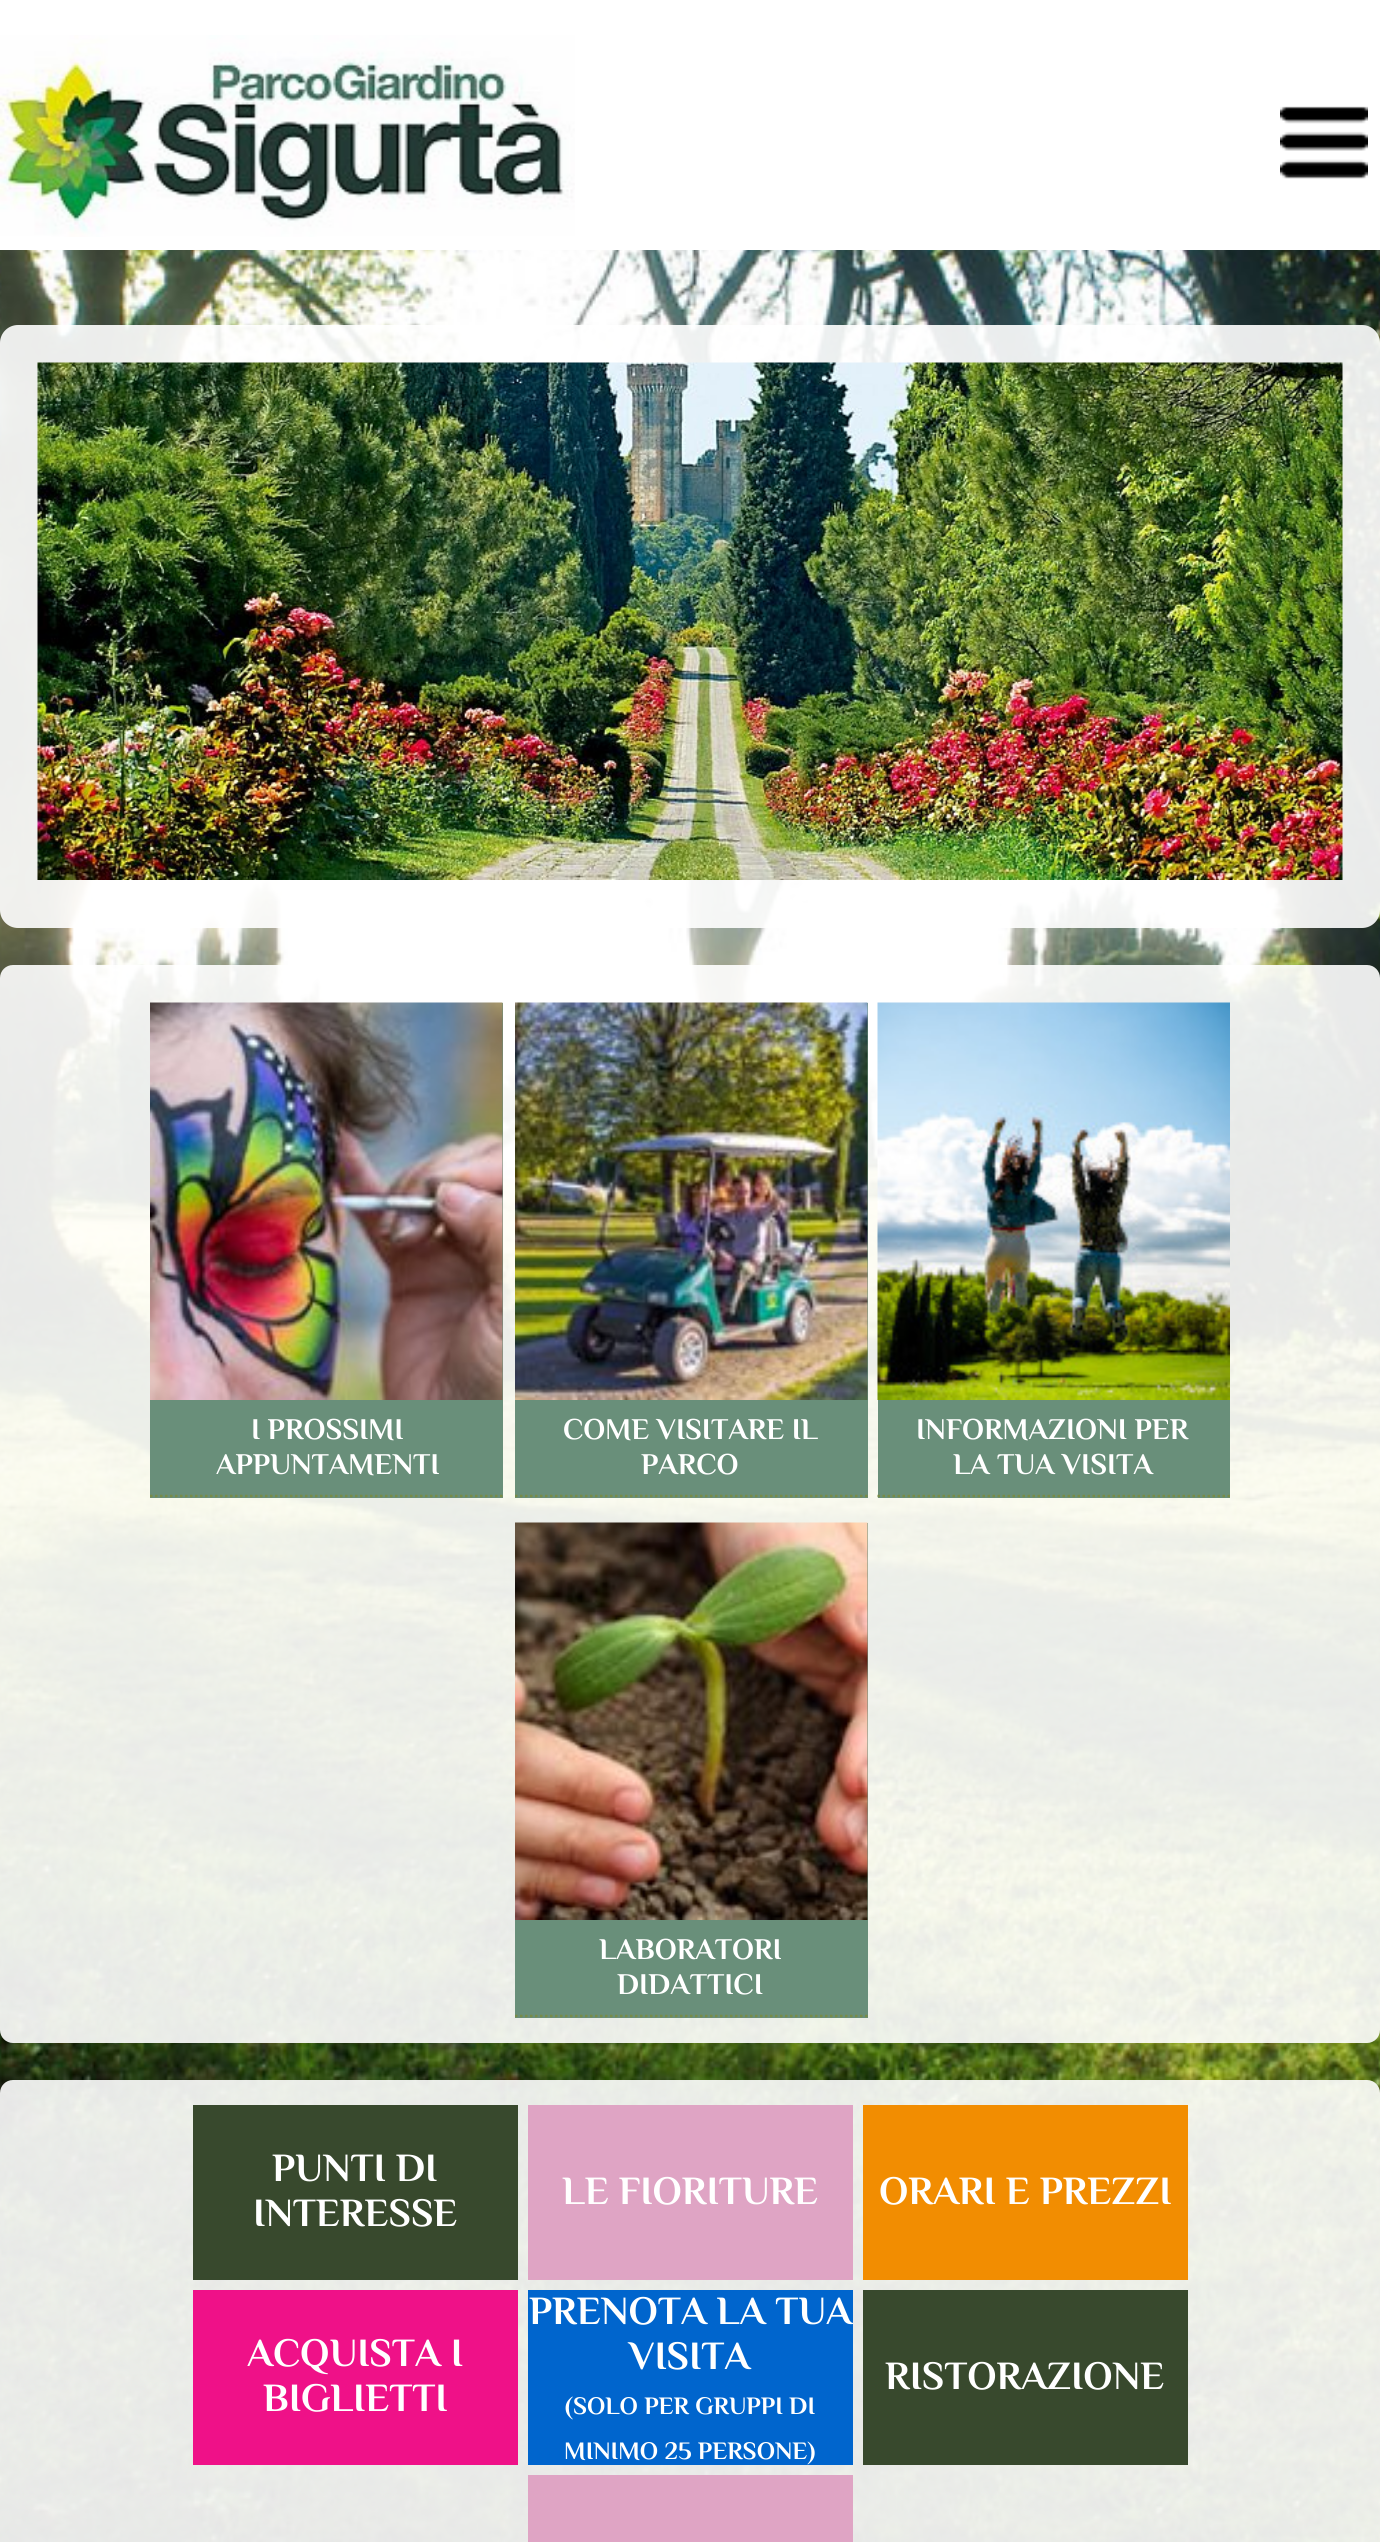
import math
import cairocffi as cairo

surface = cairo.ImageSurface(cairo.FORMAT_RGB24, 1380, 2542)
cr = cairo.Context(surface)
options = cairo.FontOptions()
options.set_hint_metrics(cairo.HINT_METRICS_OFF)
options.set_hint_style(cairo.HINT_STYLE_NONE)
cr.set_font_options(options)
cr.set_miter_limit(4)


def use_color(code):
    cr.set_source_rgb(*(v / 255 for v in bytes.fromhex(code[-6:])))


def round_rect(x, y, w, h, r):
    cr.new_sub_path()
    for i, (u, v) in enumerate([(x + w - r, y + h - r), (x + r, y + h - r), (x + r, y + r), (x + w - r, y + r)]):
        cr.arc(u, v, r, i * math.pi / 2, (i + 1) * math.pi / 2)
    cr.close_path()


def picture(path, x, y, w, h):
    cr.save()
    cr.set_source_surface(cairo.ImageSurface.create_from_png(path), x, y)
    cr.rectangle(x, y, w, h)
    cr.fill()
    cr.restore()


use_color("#ffffff")
cr.paint()
picture("img1.png", 0, 250, 1380, 2292)
picture("img2.png", 0, 35, 575, 202)
picture("img3.png", 1280, 106, 88, 73)
cr.set_source_rgba(1, 1, 1, 0.9)
round_rect(0, 325, 1380, 603, 18)
cr.fill()
picture("img4.png", 37, 362, 1306, 518)
round_rect(0, 965, 1380, 1078, 13)
cr.fill()
use_color("#698f7a")
cr.rectangle(150, 1003, 353, 495)
cr.fill()
picture("img5.png", 150, 1002, 353, 398)
cr.new_path()
cr.move_to(150, 1496)
cr.line_to(502.5, 1496)
use_color("#788c48")
cr.set_line_width(2.5)
cr.set_dash([2.5, 2.5])
cr.stroke()
cr.select_font_face("Philosopher", cairo.FONT_SLANT_NORMAL, cairo.FONT_WEIGHT_BOLD)
cr.set_font_size(30)
use_color("#ffffff")
cr.move_to(251, 1439)
cr.show_text("I PROSSIMI")
cr.move_to(216, 1474)
cr.show_text("APPUNTAMENTI")
use_color("#698f7a")
cr.rectangle(515, 1003, 353, 495)
cr.fill()
picture("img6.png", 515, 1002, 353, 398)
cr.new_path()
cr.move_to(515, 1496)
cr.line_to(867.5, 1496)
use_color("#788c48")
cr.stroke()
use_color("#ffffff")
cr.move_to(563, 1439)
cr.show_text("COME VISITARE IL")
cr.move_to(641, 1474)
cr.show_text("PARCO")
use_color("#698f7a")
cr.rectangle(878, 1400, 352, 98)
cr.fill()
picture("img7.png", 877, 1002, 353, 398)
cr.new_path()
cr.move_to(877.5, 1496)
cr.line_to(1230, 1496)
use_color("#788c48")
cr.stroke()
use_color("#ffffff")
cr.move_to(916, 1439)
cr.show_text("INFORMAZIONI PER")
cr.move_to(953, 1474)
cr.show_text("LA TUA VISITA")
use_color("#698f7a")
cr.rectangle(515, 1523, 353, 495)
cr.fill()
picture("img8.png", 515, 1522, 353, 398)
cr.new_path()
cr.move_to(515, 2016)
cr.line_to(867.5, 2016)
use_color("#788c48")
cr.stroke()
use_color("#ffffff")
cr.move_to(599, 1959)
cr.show_text("LABORATORI")
cr.move_to(617, 1994)
cr.show_text("DIDATTICI")
cr.set_source_rgba(1, 1, 1, 0.9)
round_rect(0, 2080, 1380, 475, 13)
cr.fill()
use_color("#38492d")
cr.rectangle(193, 2105, 325, 175)
cr.fill()
cr.set_font_size(40)
use_color("#ffffff")
cr.move_to(272, 2181)
cr.show_text("PUNTI DI")
cr.move_to(253, 2226)
cr.show_text("INTERESSE")
use_color("#dfa4c4")
cr.rectangle(528, 2105, 325, 175)
cr.fill()
use_color("#ffffff")
cr.move_to(562, 2204)
cr.show_text("LE FIORITURE")
use_color("#f28d01")
cr.rectangle(863, 2105, 325, 175)
cr.fill()
use_color("#ffffff")
cr.move_to(879, 2204)
cr.show_text("ORARI E PREZZI")
use_color("#ef1188")
cr.rectangle(193, 2290, 325, 175)
cr.fill()
use_color("#ffffff")
cr.move_to(247, 2366)
cr.show_text("ACQUISTA I")
cr.move_to(263, 2411)
cr.show_text("BIGLIETTI")
use_color("#0065cd")
cr.rectangle(528, 2290, 325, 175)
cr.fill()
use_color("#ffffff")
cr.move_to(529, 2324)
cr.show_text("PRENOTA LA TUA")
cr.move_to(629, 2369)
cr.show_text("VISITA")
cr.set_font_size(25)
cr.move_to(565, 2414)
cr.show_text("(SOLO PER GRUPPI DI")
cr.move_to(564, 2459)
cr.show_text("MINIMO 25 PERSONE)")
use_color("#38492d")
cr.rectangle(863, 2290, 325, 175)
cr.fill()
cr.set_font_size(40)
use_color("#ffffff")
cr.move_to(885, 2389)
cr.show_text("RISTORAZIONE")
use_color("#dfa4c4")
cr.rectangle(528, 2475, 325, 67)
cr.fill()
surface.write_to_png("result.png")
